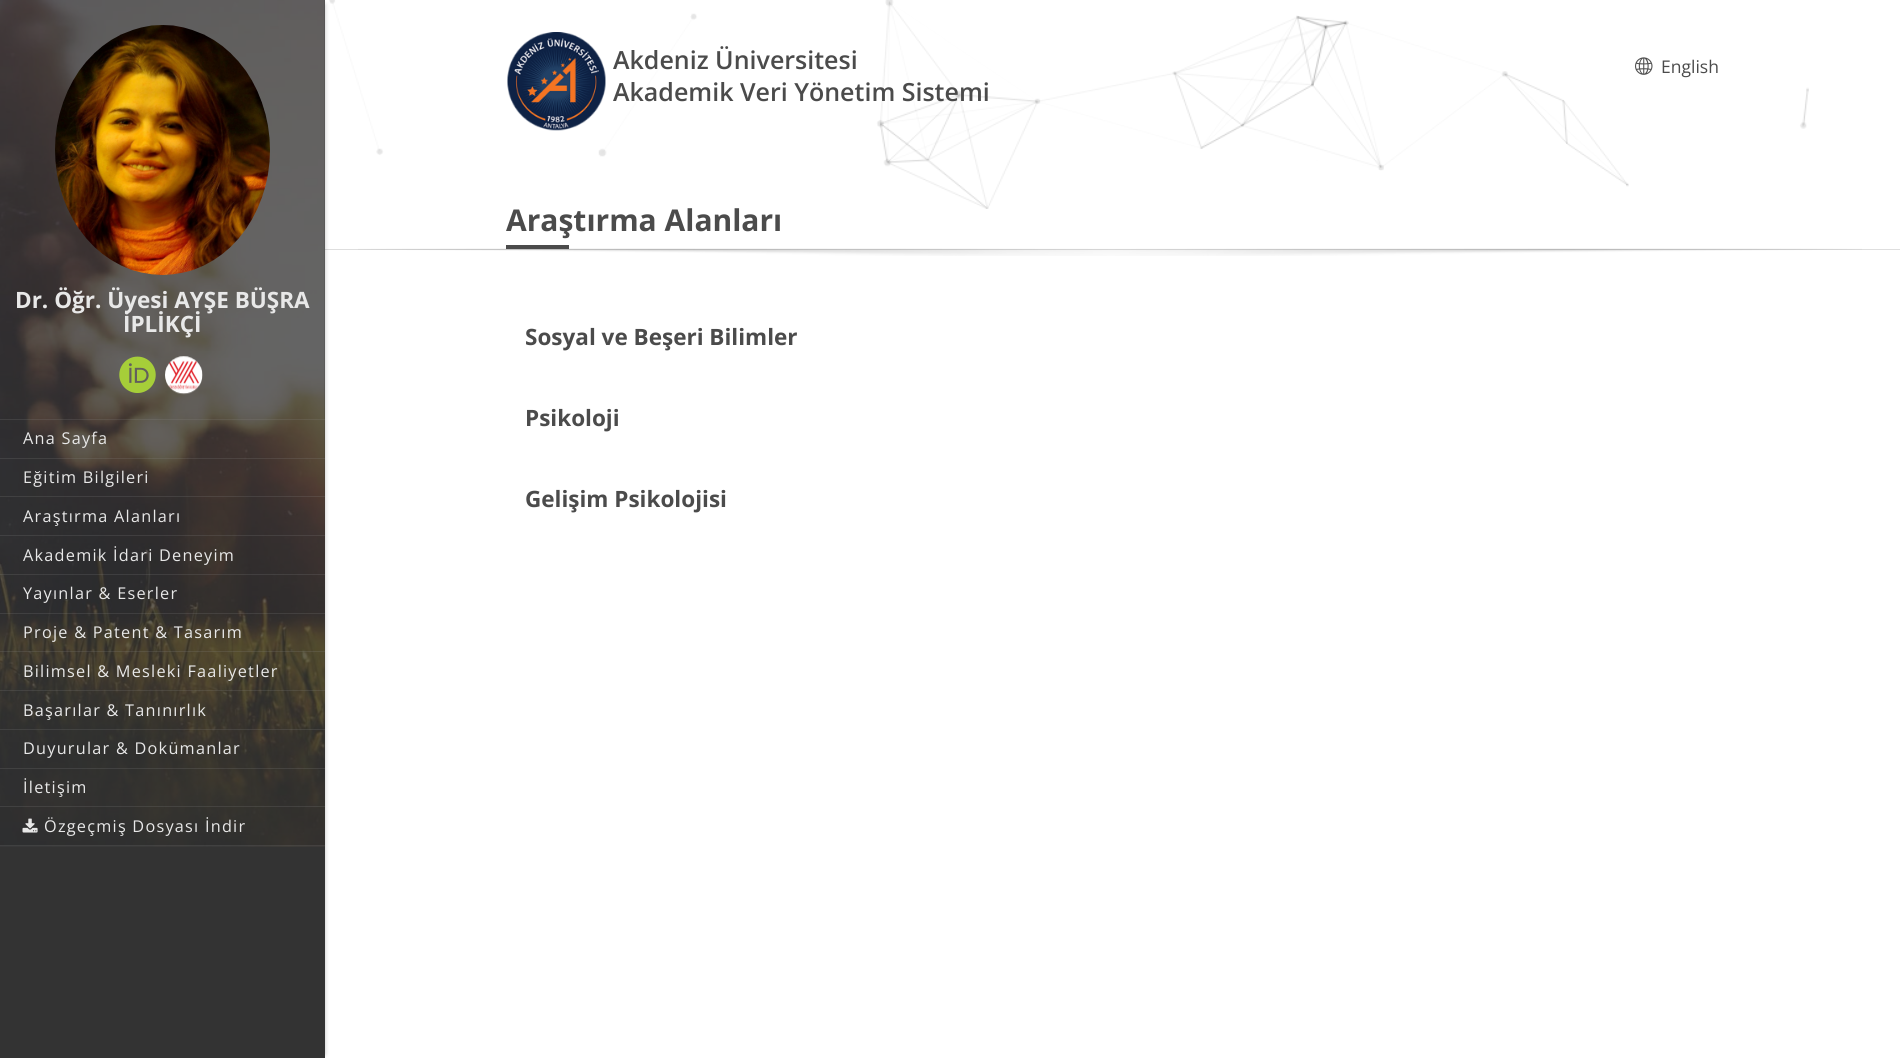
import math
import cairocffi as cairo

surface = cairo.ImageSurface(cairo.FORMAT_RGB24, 1900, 1058)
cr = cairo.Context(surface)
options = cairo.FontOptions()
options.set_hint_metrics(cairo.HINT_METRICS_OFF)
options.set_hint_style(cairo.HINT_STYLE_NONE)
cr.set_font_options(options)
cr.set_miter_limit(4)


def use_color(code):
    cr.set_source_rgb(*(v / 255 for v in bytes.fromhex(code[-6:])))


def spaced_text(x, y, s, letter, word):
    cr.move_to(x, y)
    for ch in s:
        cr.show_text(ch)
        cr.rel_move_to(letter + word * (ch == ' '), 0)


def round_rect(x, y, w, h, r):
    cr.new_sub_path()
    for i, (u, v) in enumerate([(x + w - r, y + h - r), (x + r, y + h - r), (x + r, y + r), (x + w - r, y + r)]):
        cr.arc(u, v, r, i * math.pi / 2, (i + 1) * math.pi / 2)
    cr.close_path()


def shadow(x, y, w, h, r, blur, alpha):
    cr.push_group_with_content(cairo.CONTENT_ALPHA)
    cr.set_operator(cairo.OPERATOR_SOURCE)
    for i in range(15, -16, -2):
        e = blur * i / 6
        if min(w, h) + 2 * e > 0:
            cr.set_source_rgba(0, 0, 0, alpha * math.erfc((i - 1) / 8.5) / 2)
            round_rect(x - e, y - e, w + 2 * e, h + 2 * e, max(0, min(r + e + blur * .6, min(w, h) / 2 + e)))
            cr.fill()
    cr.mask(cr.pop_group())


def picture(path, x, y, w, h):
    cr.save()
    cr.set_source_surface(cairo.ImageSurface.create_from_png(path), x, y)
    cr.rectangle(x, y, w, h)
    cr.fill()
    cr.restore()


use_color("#ffffff")
cr.paint()
use_color("#dedede")
cr.rectangle(325, 249, 1575, 1)
cr.fill()
picture("img1.png", 329, 0, 1480, 209)
picture("img2.png", 507, 32, 99, 99)
cr.select_font_face("Open Sans SemiBold")
cr.set_font_size(25)
use_color("#4b4b4b")
cr.move_to(613, 69)
cr.show_text("Akdeniz Üniversitesi")
cr.move_to(613, 101)
cr.show_text("Akademik Veri Yönetim Sistemi")
picture("img3.png", 1635, 57, 18, 18)
cr.select_font_face("Open Sans")
cr.set_font_size(17.5)
cr.move_to(1661, 73)
cr.show_text("English")
cr.select_font_face("Open Sans", cairo.FONT_SLANT_NORMAL, cairo.FONT_WEIGHT_BOLD)
cr.set_font_size(30)
cr.move_to(506, 231)
cr.show_text("Araştırma Alanları")
picture("img4.png", 358, 248, 1504, 8)
cr.rectangle(506, 245, 63, 4)
cr.fill()
use_color("#000000")
shadow(8, 5, 315, 1049, 0, 3, 0.5)
use_color("#333333")
cr.rectangle(0, 0, 325, 1058)
cr.fill()
picture("img5.png", 0, 0, 325, 847)
picture("img6.png", 55, 25, 215, 250)
cr.set_font_size(22.5)
use_color("#e8e8e8")
cr.move_to(15, 308)
cr.show_text("Dr. Öğr. Üyesi AYŞE BÜŞRA")
cr.move_to(123, 332)
cr.show_text("İPLİKÇİ")
picture("img7.png", 119, 356, 37, 37)
picture("img8.png", 165, 356, 38, 39)
cr.set_source_rgba(0.573, 0.573, 0.573, 0.18)
cr.rectangle(0, 419, 325, 1)
cr.fill()
cr.rectangle(0, 458, 325, 1)
cr.fill()
cr.select_font_face("Open Sans")
cr.set_font_size(16.25)
use_color("#e8e8e8")
spaced_text(23, 444, "Ana Sayfa", 1.25, 0)
cr.set_source_rgba(0.573, 0.573, 0.573, 0.18)
cr.rectangle(0, 496, 325, 1)
cr.fill()
use_color("#e8e8e8")
spaced_text(23, 483, "Eğitim Bilgileri", 1.25, 0)
cr.set_source_rgba(0.573, 0.573, 0.573, 0.18)
cr.rectangle(0, 535, 325, 1)
cr.fill()
use_color("#e8e8e8")
spaced_text(23, 522, "Araştırma Alanları", 1.25, 0)
cr.set_source_rgba(0.573, 0.573, 0.573, 0.18)
cr.rectangle(0, 574, 325, 1)
cr.fill()
use_color("#e8e8e8")
spaced_text(23, 561, "Akademik İdari Deneyim", 1.25, 0)
cr.set_source_rgba(0.573, 0.573, 0.573, 0.18)
cr.rectangle(0, 613, 325, 1)
cr.fill()
use_color("#e8e8e8")
spaced_text(23, 599, "Yayınlar & Eserler", 1.25, 0)
cr.set_source_rgba(0.573, 0.573, 0.573, 0.18)
cr.rectangle(0, 651, 325, 1)
cr.fill()
use_color("#e8e8e8")
spaced_text(23, 638, "Proje & Patent & Tasarım", 1.25, 0)
cr.set_source_rgba(0.573, 0.573, 0.573, 0.18)
cr.rectangle(0, 690, 325, 1)
cr.fill()
use_color("#e8e8e8")
spaced_text(23, 677, "Bilimsel & Mesleki Faaliyetler", 1.25, 0)
cr.set_source_rgba(0.573, 0.573, 0.573, 0.18)
cr.rectangle(0, 729, 325, 1)
cr.fill()
use_color("#e8e8e8")
spaced_text(23, 716, "Başarılar & Tanınırlık", 1.25, 0)
cr.set_source_rgba(0.573, 0.573, 0.573, 0.18)
cr.rectangle(0, 768, 325, 1)
cr.fill()
use_color("#e8e8e8")
spaced_text(23, 754, "Duyurular & Dokümanlar", 1.25, 0)
cr.set_source_rgba(0.573, 0.573, 0.573, 0.18)
cr.rectangle(0, 806, 325, 1)
cr.fill()
use_color("#e8e8e8")
spaced_text(23, 793, "İletişim", 1.25, 0)
cr.set_source_rgba(0.573, 0.573, 0.573, 0.18)
cr.rectangle(0, 845, 325, 1)
cr.fill()
picture("img9.png", 22, 818, 16, 15)
use_color("#e8e8e8")
spaced_text(44, 832, "Özgeçmiş Dosyası İndir", 1.25, 0)
cr.select_font_face("Open Sans", cairo.FONT_SLANT_NORMAL, cairo.FONT_WEIGHT_BOLD)
cr.set_font_size(22.5)
use_color("#4b4b4b")
cr.move_to(525, 345)
cr.show_text("Sosyal ve Beşeri Bilimler")
cr.move_to(525, 426)
cr.show_text("Psikoloji")
cr.move_to(525, 507)
cr.show_text("Gelişim Psikolojisi")
surface.write_to_png("result.png")
